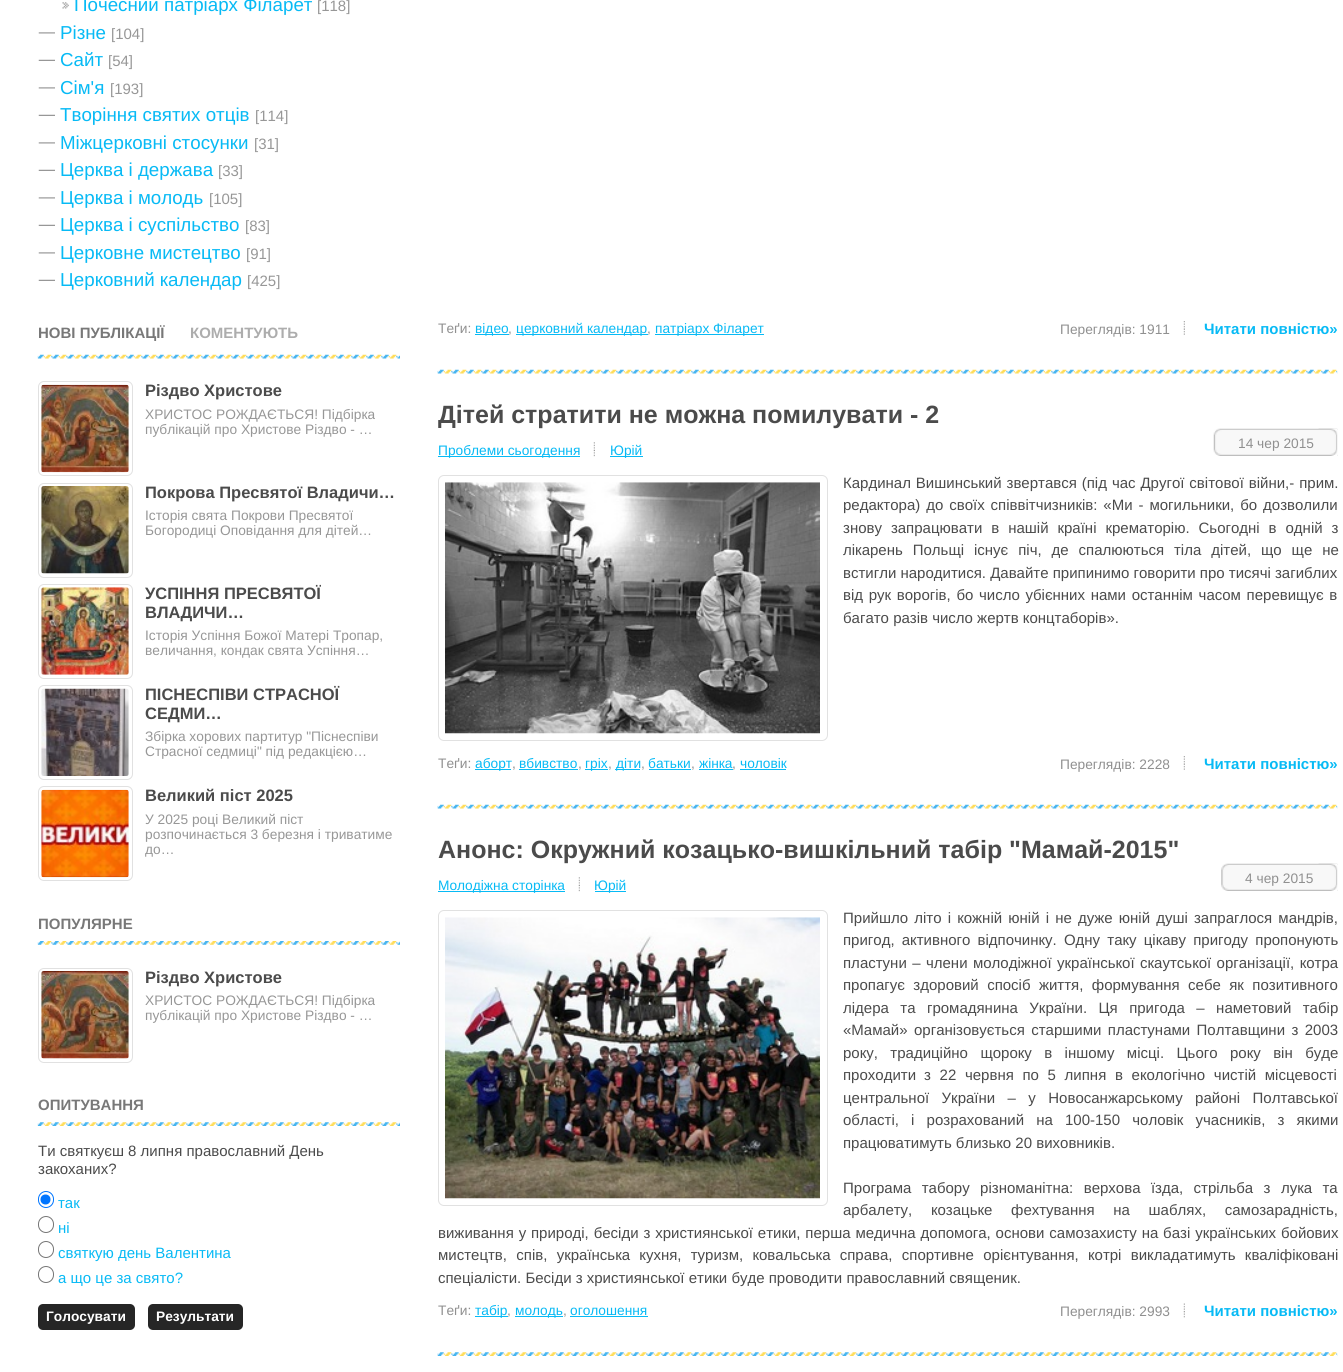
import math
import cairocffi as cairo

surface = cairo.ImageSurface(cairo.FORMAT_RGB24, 1343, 1372)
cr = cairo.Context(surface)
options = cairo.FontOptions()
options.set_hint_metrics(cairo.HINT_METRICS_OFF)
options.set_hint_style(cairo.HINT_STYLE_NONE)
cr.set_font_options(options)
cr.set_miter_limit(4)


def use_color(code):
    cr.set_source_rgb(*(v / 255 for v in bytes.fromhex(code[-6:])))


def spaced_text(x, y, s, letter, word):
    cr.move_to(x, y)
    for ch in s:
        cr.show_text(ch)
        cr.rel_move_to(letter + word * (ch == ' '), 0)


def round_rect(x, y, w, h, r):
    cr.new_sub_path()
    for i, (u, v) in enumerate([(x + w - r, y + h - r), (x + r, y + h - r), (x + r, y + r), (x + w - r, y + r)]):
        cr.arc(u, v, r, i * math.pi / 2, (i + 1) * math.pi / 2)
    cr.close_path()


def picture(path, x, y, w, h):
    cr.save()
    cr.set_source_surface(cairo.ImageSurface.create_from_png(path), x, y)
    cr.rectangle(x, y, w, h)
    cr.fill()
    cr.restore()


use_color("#ffffff")
cr.paint()
picture("img1.png", 62, 2, 7, 7)
cr.select_font_face("Liberation Sans")
cr.set_font_size(18.75)
use_color("#07baf5")
cr.move_to(74, 11)
cr.show_text("Почесний патріарх Філарет")
cr.set_font_size(15)
use_color("#979797")
cr.move_to(317, 11)
cr.show_text("[118]")
picture("img2.png", 38, 32, 17, 2)
cr.set_font_size(18.75)
use_color("#07baf5")
cr.move_to(60, 39)
cr.show_text("Різне")
cr.set_font_size(15)
use_color("#979797")
cr.move_to(111, 39)
cr.show_text("[104]")
picture("img3.png", 38, 59, 17, 2)
cr.set_font_size(18.75)
use_color("#07baf5")
cr.move_to(60, 66)
cr.show_text("Сайт")
cr.set_font_size(15)
use_color("#979797")
cr.move_to(108, 66)
cr.show_text("[54]")
picture("img2.png", 38, 87, 17, 2)
cr.set_font_size(18.75)
use_color("#07baf5")
cr.move_to(60, 94)
cr.show_text("Сім'я")
cr.set_font_size(15)
use_color("#979797")
cr.move_to(110, 94)
cr.show_text("[193]")
picture("img3.png", 38, 114, 17, 2)
cr.set_font_size(18.75)
use_color("#07baf5")
cr.move_to(60, 121)
cr.show_text("Творіння святих отців")
cr.set_font_size(15)
use_color("#979797")
cr.move_to(255, 121)
cr.show_text("[114]")
picture("img2.png", 38, 142, 17, 2)
cr.set_font_size(18.75)
use_color("#07baf5")
cr.move_to(60, 149)
cr.show_text("Міжцерковні стосунки")
cr.set_font_size(15)
use_color("#979797")
cr.move_to(254, 149)
cr.show_text("[31]")
picture("img3.png", 38, 169, 17, 2)
cr.set_font_size(18.75)
use_color("#07baf5")
cr.move_to(60, 176)
cr.show_text("Церква і держава")
cr.set_font_size(15)
use_color("#979797")
cr.move_to(218, 176)
cr.show_text("[33]")
picture("img2.png", 38, 197, 17, 2)
cr.set_font_size(18.75)
use_color("#07baf5")
cr.move_to(60, 204)
cr.show_text("Церква і молодь")
cr.set_font_size(15)
use_color("#979797")
cr.move_to(209, 204)
cr.show_text("[105]")
picture("img3.png", 38, 224, 17, 2)
cr.set_font_size(18.75)
use_color("#07baf5")
cr.move_to(60, 231)
cr.show_text("Церква і суспільство")
cr.set_font_size(15)
use_color("#979797")
cr.move_to(245, 231)
cr.show_text("[83]")
picture("img2.png", 38, 252, 17, 2)
cr.set_font_size(18.75)
use_color("#07baf5")
cr.move_to(60, 259)
cr.show_text("Церковне мистецтво")
cr.set_font_size(15)
use_color("#979797")
cr.move_to(246, 259)
cr.show_text("[91]")
picture("img3.png", 38, 279, 17, 2)
cr.set_font_size(18.75)
use_color("#07baf5")
cr.move_to(60, 286)
cr.show_text("Церковний календар")
cr.set_font_size(15)
use_color("#979797")
cr.move_to(247, 286)
cr.show_text("[425]")
picture("img4.png", 37, 354, 363, 5)
cr.select_font_face("Liberation Sans", cairo.FONT_SLANT_NORMAL, cairo.FONT_WEIGHT_BOLD)
use_color("#787878")
cr.move_to(38, 338)
cr.show_text("НОВІ ПУБЛІКАЦІЇ")
use_color("#adadad")
cr.move_to(190, 338)
cr.show_text("КОМЕНТУЮТЬ")
round_rect(38.5, 381.5, 94, 94, 5.5)
use_color("#e1e1e1")
cr.set_line_width(1)
cr.stroke()
picture("img5.png", 41, 384, 88, 89)
cr.set_font_size(16.5)
use_color("#4b4b4b")
cr.move_to(145, 396)
cr.show_text("Різдво Христове")
cr.select_font_face("Liberation Sans")
cr.set_font_size(13.75)
use_color("#979797")
cr.move_to(145, 419)
cr.show_text("ХРИСТОС РОЖДАЄТЬСЯ! Підбірка")
cr.move_to(145, 434)
cr.show_text("публікацій про Христове Різдво - …")
round_rect(38.5, 483.5, 94, 94, 5.5)
use_color("#e1e1e1")
cr.stroke()
picture("img6.png", 41, 486, 88, 88)
cr.select_font_face("Liberation Sans", cairo.FONT_SLANT_NORMAL, cairo.FONT_WEIGHT_BOLD)
cr.set_font_size(16.5)
use_color("#4b4b4b")
cr.move_to(145, 498)
cr.show_text("Покрова Пресвятої Владичи…")
cr.select_font_face("Liberation Sans")
cr.set_font_size(13.75)
use_color("#979797")
cr.move_to(145, 520)
cr.show_text("Історія свята Покрови Пресвятої")
cr.move_to(145, 535)
cr.show_text("Богородиці Оповідання для дітей…")
round_rect(38.5, 584.5, 94, 94, 5.5)
use_color("#e1e1e1")
cr.stroke()
picture("img7.png", 41, 587, 88, 88)
cr.select_font_face("Liberation Sans", cairo.FONT_SLANT_NORMAL, cairo.FONT_WEIGHT_BOLD)
cr.set_font_size(16.5)
use_color("#4b4b4b")
cr.move_to(145, 599)
cr.show_text("УСПІННЯ ПРЕСВЯТОЇ")
cr.move_to(145, 618)
cr.show_text("ВЛАДИЧИ…")
cr.select_font_face("Liberation Sans")
cr.set_font_size(13.75)
use_color("#979797")
cr.move_to(145, 640)
cr.show_text("Історія Успіння Божої Матері Тропар,")
cr.move_to(145, 655)
cr.show_text("величання, кондак свята Успіння…")
round_rect(38.5, 685.5, 94, 94, 5.5)
use_color("#e1e1e1")
cr.stroke()
picture("img8.png", 41, 688, 88, 88)
cr.select_font_face("Liberation Sans", cairo.FONT_SLANT_NORMAL, cairo.FONT_WEIGHT_BOLD)
cr.set_font_size(16.5)
use_color("#4b4b4b")
cr.move_to(145, 700)
cr.show_text("ПІСНЕСПІВИ СТРАСНОЇ")
cr.move_to(145, 719)
cr.show_text("СЕДМИ…")
cr.select_font_face("Liberation Sans")
cr.set_font_size(13.75)
use_color("#979797")
cr.move_to(145, 741)
cr.show_text("Збірка хорових партитур \"Піснеспіви")
cr.move_to(145, 756)
cr.show_text("Страсної седмиці\" під редакцією…")
round_rect(38.5, 786.5, 94, 94, 5.5)
use_color("#e1e1e1")
cr.stroke()
picture("img9.png", 41, 789, 88, 89)
cr.select_font_face("Liberation Sans", cairo.FONT_SLANT_NORMAL, cairo.FONT_WEIGHT_BOLD)
cr.set_font_size(16.5)
use_color("#4b4b4b")
cr.move_to(145, 801)
cr.show_text("Великий піст 2025")
cr.select_font_face("Liberation Sans")
cr.set_font_size(13.75)
use_color("#979797")
cr.move_to(145, 824)
cr.show_text("У 2025 році Великий піст")
cr.move_to(145, 839)
cr.show_text("розпочинається 3 березня і триватиме")
cr.move_to(145, 854)
cr.show_text("до…")
picture("img10.png", 37, 941, 363, 4)
cr.select_font_face("Liberation Sans", cairo.FONT_SLANT_NORMAL, cairo.FONT_WEIGHT_BOLD)
cr.set_font_size(15)
use_color("#787878")
cr.move_to(38, 929)
cr.show_text("ПОПУЛЯРНЕ")
round_rect(38.5, 968.5, 94, 94, 5.5)
use_color("#e1e1e1")
cr.stroke()
picture("img11.png", 41, 971, 88, 88)
cr.set_font_size(16.5)
use_color("#4b4b4b")
cr.move_to(145, 983)
cr.show_text("Різдво Христове")
cr.select_font_face("Liberation Sans")
cr.set_font_size(13.75)
use_color("#979797")
cr.move_to(145, 1005)
cr.show_text("ХРИСТОС РОЖДАЄТЬСЯ! Підбірка")
cr.move_to(145, 1020)
cr.show_text("публікацій про Христове Різдво - …")
picture("img12.png", 37, 1122, 363, 4)
cr.select_font_face("Liberation Sans", cairo.FONT_SLANT_NORMAL, cairo.FONT_WEIGHT_BOLD)
cr.set_font_size(15)
use_color("#787878")
cr.move_to(38, 1110)
cr.show_text("ОПИТУВАННЯ")
cr.select_font_face("Liberation Sans")
use_color("#4b4b4b")
cr.move_to(38, 1156)
cr.show_text("Ти святкуєш 8 липня православний День")
cr.move_to(38, 1174)
cr.show_text("закоханих?")
round_rect(38.5, 1191.5, 15, 16, 7.5)
use_color("#0075ff")
cr.stroke()
cr.arc(45.5, 1199.5, 5, 0, 2 * math.pi)
cr.fill()
use_color("#07baf5")
cr.move_to(58, 1208)
cr.show_text("так")
round_rect(38.5, 1216.5, 15, 16, 7.5)
use_color("#767676")
cr.stroke()
use_color("#07baf5")
cr.move_to(58, 1233)
cr.show_text("ні")
round_rect(38.5, 1241.5, 15, 16, 7.5)
use_color("#767676")
cr.stroke()
use_color("#07baf5")
cr.move_to(58, 1258)
cr.show_text("святкую день Валентина")
round_rect(38.5, 1266.5, 15, 16, 7.5)
use_color("#767676")
cr.stroke()
use_color("#07baf5")
cr.move_to(58, 1283)
cr.show_text("а що це за свято?")
use_color("#262626")
round_rect(38, 1304, 97, 26, 5)
cr.fill()
cr.select_font_face("Liberation Sans", cairo.FONT_SLANT_NORMAL, cairo.FONT_WEIGHT_BOLD)
cr.set_font_size(13.75)
use_color("#ffffff")
cr.move_to(46, 1321)
cr.show_text("Голосувати")
use_color("#262626")
round_rect(148, 1304, 95, 26, 5)
cr.fill()
use_color("#ffffff")
cr.move_to(156, 1321)
cr.show_text("Результати")
picture("img13.png", 437, 369, 901, 5)
cr.select_font_face("Liberation Sans")
use_color("#909090")
cr.move_to(438, 333)
cr.show_text("Теґи:")
use_color("#07baf5")
cr.rectangle(475, 334, 34, 1)
cr.fill()
cr.move_to(475, 333)
cr.show_text("відео")
use_color("#909090")
cr.move_to(508, 333)
cr.show_text(",")
use_color("#07baf5")
cr.rectangle(516, 334, 132, 1)
cr.fill()
cr.move_to(516, 333)
cr.show_text("церковний календар")
use_color("#909090")
cr.move_to(647, 333)
cr.show_text(",")
use_color("#07baf5")
cr.rectangle(655, 334, 109, 1)
cr.fill()
cr.move_to(655, 333)
cr.show_text("патріарх Філарет")
use_color("#909090")
cr.move_to(1060, 334)
cr.show_text("Переглядів: 1911")
picture("img14.png", 1183, 321, 2, 14)
cr.select_font_face("Liberation Sans", cairo.FONT_SLANT_NORMAL, cairo.FONT_WEIGHT_BOLD)
cr.set_font_size(15)
use_color("#07baf5")
cr.move_to(1204, 334)
cr.show_text("Читати повністю»")
picture("img15.png", 437, 804, 901, 5)
cr.set_font_size(25)
use_color("#4b4b4b")
cr.move_to(438, 423)
cr.show_text("Дітей стратити не можна помилувати - 2")
use_color("#07baf5")
cr.rectangle(438, 456, 142, 1)
cr.fill()
cr.select_font_face("Liberation Sans")
cr.set_font_size(13.75)
cr.move_to(438, 455)
cr.show_text("Проблеми сьогодення")
picture("img16.png", 593, 442, 2, 15)
cr.rectangle(610, 456, 33, 1)
cr.fill()
cr.move_to(610, 455)
cr.show_text("Юрій")
picture("img17.png", 1213, 428, 125, 28)
picture("img18.png", 1318, 428, 20, 28)
use_color("#909090")
cr.move_to(1238, 448)
cr.show_text("14 чер 2015")
round_rect(438.5, 475.5, 389, 265, 5.5)
use_color("#e1e1e1")
cr.stroke()
picture("img19.png", 445, 482, 375, 252)
cr.set_font_size(15)
use_color("#4b4b4b")
spaced_text(843, 488, "Кардинал Вишинський звертався (під час Другої світової війни,- прим.", 0, 0.75)
spaced_text(843, 510, "редактора) до своїх співвітчизників: «Ми - могильники, бо дозволили", 0, 1.75)
spaced_text(843, 533, "знову запрацювати в нашій країні крематорію. Сьогодні в одній з", 0, 4.75)
spaced_text(843, 555, "лікарень Польщі існує піч, де спалюються тіла дітей, що ще не", 0, 5.75)
cr.move_to(843, 578)
cr.show_text("встигли народитися. Давайте припинимо говорити про тисячі загиблих")
spaced_text(843, 600, "від рук ворогів, бо число убієнних нами останнім часом перевищує в", 0, 1.5)
cr.move_to(843, 623)
cr.show_text("багато разів число жертв концтаборів».")
cr.set_font_size(13.75)
use_color("#909090")
cr.move_to(438, 768)
cr.show_text("Теґи:")
use_color("#07baf5")
cr.rectangle(475, 769, 36, 1)
cr.fill()
cr.move_to(475, 768)
cr.show_text("аборт")
use_color("#909090")
cr.move_to(512, 768)
cr.show_text(",")
use_color("#07baf5")
cr.move_to(519, 768)
cr.show_text("вбивство")
cr.rectangle(519, 769, 59, 1)
cr.fill()
use_color("#909090")
cr.move_to(578, 768)
cr.show_text(",")
use_color("#07baf5")
cr.rectangle(585, 769, 23, 1)
cr.fill()
cr.move_to(585, 768)
cr.show_text("гріх")
use_color("#909090")
cr.move_to(608, 768)
cr.show_text(",")
use_color("#07baf5")
cr.rectangle(615, 769, 25, 1)
cr.fill()
cr.move_to(616, 768)
cr.show_text("діти")
use_color("#909090")
cr.move_to(641, 768)
cr.show_text(",")
use_color("#07baf5")
cr.move_to(648, 768)
cr.show_text("батьки")
cr.rectangle(649, 769, 42, 1)
cr.fill()
use_color("#909090")
cr.move_to(691, 768)
cr.show_text(",")
use_color("#07baf5")
cr.move_to(699, 768)
cr.show_text("жінка")
cr.rectangle(699, 769, 34, 1)
cr.fill()
use_color("#909090")
cr.move_to(732, 768)
cr.show_text(",")
use_color("#07baf5")
cr.move_to(740, 768)
cr.show_text("чоловік")
cr.rectangle(740, 769, 46, 1)
cr.fill()
use_color("#909090")
cr.move_to(1060, 769)
cr.show_text("Переглядів: 2228")
picture("img14.png", 1183, 756, 2, 14)
cr.select_font_face("Liberation Sans", cairo.FONT_SLANT_NORMAL, cairo.FONT_WEIGHT_BOLD)
cr.set_font_size(15)
use_color("#07baf5")
cr.move_to(1204, 769)
cr.show_text("Читати повністю»")
picture("img20.png", 437, 1352, 901, 4)
cr.set_font_size(25)
use_color("#4b4b4b")
cr.move_to(438, 858)
cr.show_text("Анонс: Окружний козацько-вишкільний табір \"Мамай-2015\"")
use_color("#07baf5")
cr.rectangle(438, 891, 127, 1)
cr.fill()
cr.select_font_face("Liberation Sans")
cr.set_font_size(13.75)
cr.move_to(438, 890)
cr.show_text("Молодіжна сторінка")
picture("img16.png", 578, 877, 2, 15)
cr.rectangle(595, 891, 31, 1)
cr.fill()
cr.move_to(594, 890)
cr.show_text("Юрій")
picture("img21.png", 1221, 863, 117, 28)
picture("img18.png", 1318, 863, 20, 28)
use_color("#909090")
cr.move_to(1245, 883)
cr.show_text("4 чер 2015")
round_rect(438.5, 910.5, 389, 295, 5.5)
use_color("#e1e1e1")
cr.stroke()
picture("img22.png", 445, 917, 375, 282)
cr.set_font_size(15)
use_color("#4b4b4b")
spaced_text(843, 923, "Прийшло літо і кожній юній і не дуже юній душі запраглося мандрів,", 0, 2)
spaced_text(843, 945, "пригод, активного відпочинку. Одну таку цікаву пригоду пропонують", 0, 3)
spaced_text(843, 968, "пластуни – члени молодіжної української скаутської організації, котра", 0, 1.25)
spaced_text(843, 990, "пропагує здоровий спосіб життя, формування себе як позитивного", 0, 4.25)
spaced_text(843, 1013, "лідера та громадянина України. Ця пригода – наметовий табір", 0, 7.25)
spaced_text(843, 1035, "«Мамай» організовується старшими пластунами Полтавщини з 2003", 0, 2.25)
spaced_text(843, 1058, "року, традиційно щороку в іншому місці. Цього року він буде", 0, 8.25)
cr.move_to(843, 1080)
cr.show_text("проходити")
spaced_text(924, 1080, "з 22 червня по 5 липня в екологічно чистій місцевості", 0, 4.5)
spaced_text(843, 1103, "центральної України – у Новосанжарському районі Полтавської", 0, 8.25)
spaced_text(843, 1125, "області, і розрахований на 100-150 чоловік учасників, з якими", 0, 8)
cr.move_to(843, 1148)
cr.show_text("працюватимуть близько 20 виховників.")
spaced_text(843, 1193, "Програма табору різноманітна: верхова їзда, стрільба з лука та", 0, 6.25)
spaced_text(843, 1215, "арбалету, козацьке фехтування на шаблях, самозарадність,", 0, 14.5)
spaced_text(438, 1238, "виживання у природі, бесіди з християнської етики, перша медична допомога, основи самозахисту на базі українських бойових", 0, 0.7)
spaced_text(438, 1260, "мистецтв, спів, українська кухня, туризм, ковальська справа, спортивне орієнтування, котрі викладатимуть кваліфіковані", 0, 5.1)
cr.move_to(438, 1283)
cr.show_text("спеціалісти. Бесіди з християнської етики буде проводити православний священик.")
cr.set_font_size(13.75)
use_color("#909090")
cr.move_to(438, 1315)
cr.show_text("Теґи:")
use_color("#07baf5")
cr.rectangle(475, 1316, 33, 1)
cr.fill()
cr.move_to(475, 1315)
cr.show_text("табір")
use_color("#909090")
cr.move_to(507, 1315)
cr.show_text(",")
use_color("#07baf5")
cr.rectangle(515, 1316, 48, 1)
cr.fill()
cr.move_to(515, 1315)
cr.show_text("молодь")
use_color("#909090")
cr.move_to(563, 1315)
cr.show_text(",")
use_color("#07baf5")
cr.move_to(570, 1315)
cr.show_text("оголошення")
cr.rectangle(570, 1316, 78, 1)
cr.fill()
use_color("#909090")
cr.move_to(1060, 1316)
cr.show_text("Переглядів: 2993")
picture("img23.png", 1183, 1303, 2, 15)
cr.select_font_face("Liberation Sans", cairo.FONT_SLANT_NORMAL, cairo.FONT_WEIGHT_BOLD)
cr.set_font_size(15)
use_color("#07baf5")
cr.move_to(1204, 1316)
cr.show_text("Читати повністю»")
surface.write_to_png("result.png")
